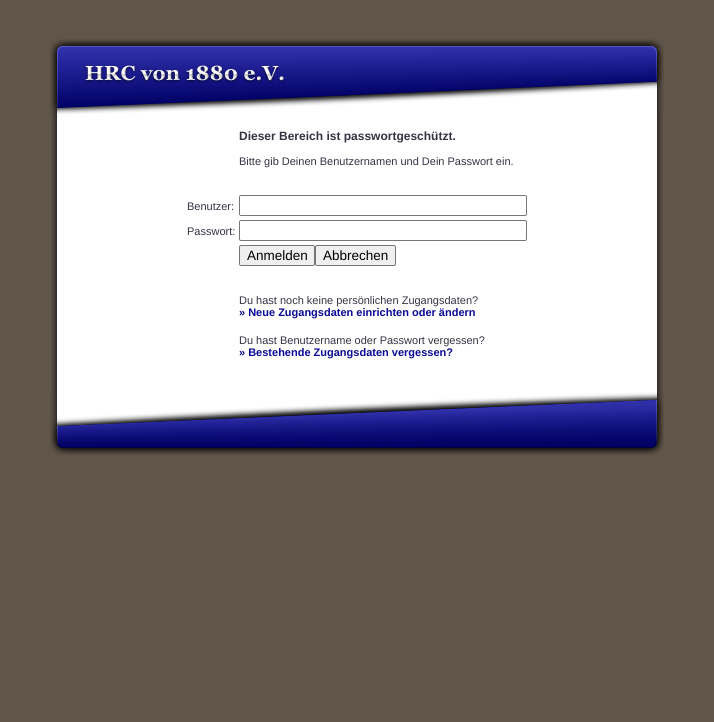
import math
import cairocffi as cairo

surface = cairo.ImageSurface(cairo.FORMAT_RGB24, 714, 722)
cr = cairo.Context(surface)
options = cairo.FontOptions()
options.set_hint_metrics(cairo.HINT_METRICS_OFF)
options.set_hint_style(cairo.HINT_STYLE_NONE)
cr.set_font_options(options)
cr.set_miter_limit(4)


def use_color(code):
    cr.set_source_rgb(*(v / 255 for v in bytes.fromhex(code[-6:])))


def round_rect(x, y, w, h, r):
    cr.new_sub_path()
    for i, (u, v) in enumerate([(x + w - r, y + h - r), (x + r, y + h - r), (x + r, y + r), (x + w - r, y + r)]):
        cr.arc(u, v, r, i * math.pi / 2, (i + 1) * math.pi / 2)
    cr.close_path()


def picture(path, x, y, w, h):
    cr.save()
    cr.set_source_surface(cairo.ImageSurface.create_from_png(path), x, y)
    cr.rectangle(x, y, w, h)
    cr.fill()
    cr.restore()


use_color("#605549")
cr.paint()
picture("img1.png", 51, 115, 612, 277)
picture("img2.png", 50, 38, 614, 77)
cr.select_font_face("Liberation Sans", cairo.FONT_SLANT_NORMAL, cairo.FONT_WEIGHT_BOLD)
cr.set_font_size(12)
use_color("#333344")
cr.move_to(239, 140)
cr.show_text("Dieser Bereich ist passwortgeschützt.")
cr.select_font_face("Liberation Sans")
cr.set_font_size(11)
cr.move_to(239, 165)
cr.show_text("Bitte gib Deinen Benutzernamen und Dein Passwort ein.")
cr.move_to(187, 210)
cr.show_text("Benutzer:")
round_rect(239.5, 195.5, 287, 20, 1.5)
use_color("#767676")
cr.set_line_width(1)
cr.stroke()
use_color("#333344")
cr.move_to(187, 235)
cr.show_text("Passwort:")
round_rect(239.5, 220.5, 287, 20, 1.5)
use_color("#767676")
cr.stroke()
use_color("#efefef")
round_rect(239.5, 245.5, 75, 20, 1.5)
cr.fill_preserve()
use_color("#767676")
cr.stroke()
cr.set_font_size(13.5)
use_color("#000000")
cr.move_to(247, 260)
cr.show_text("Anmelden")
use_color("#efefef")
round_rect(315.5, 245.5, 80, 20, 1.5)
cr.fill_preserve()
use_color("#767676")
cr.stroke()
use_color("#000000")
cr.move_to(323, 260)
cr.show_text("Abbrechen")
cr.set_font_size(11)
use_color("#333344")
cr.move_to(239, 304)
cr.show_text("Du hast noch keine persönlichen Zugangsdaten?")
cr.select_font_face("Liberation Sans", cairo.FONT_SLANT_NORMAL, cairo.FONT_WEIGHT_BOLD)
use_color("#0a0a96")
cr.move_to(239, 316)
cr.show_text("» Neue Zugangsdaten einrichten oder ändern")
cr.select_font_face("Liberation Sans")
use_color("#333344")
cr.move_to(239, 344)
cr.show_text("Du hast Benutzername oder Passwort vergessen?")
cr.select_font_face("Liberation Sans", cairo.FONT_SLANT_NORMAL, cairo.FONT_WEIGHT_BOLD)
use_color("#0a0a96")
cr.move_to(239, 356)
cr.show_text("» Bestehende Zugangsdaten vergessen?")
picture("img3.png", 50, 392, 614, 64)
surface.write_to_png("result.png")
